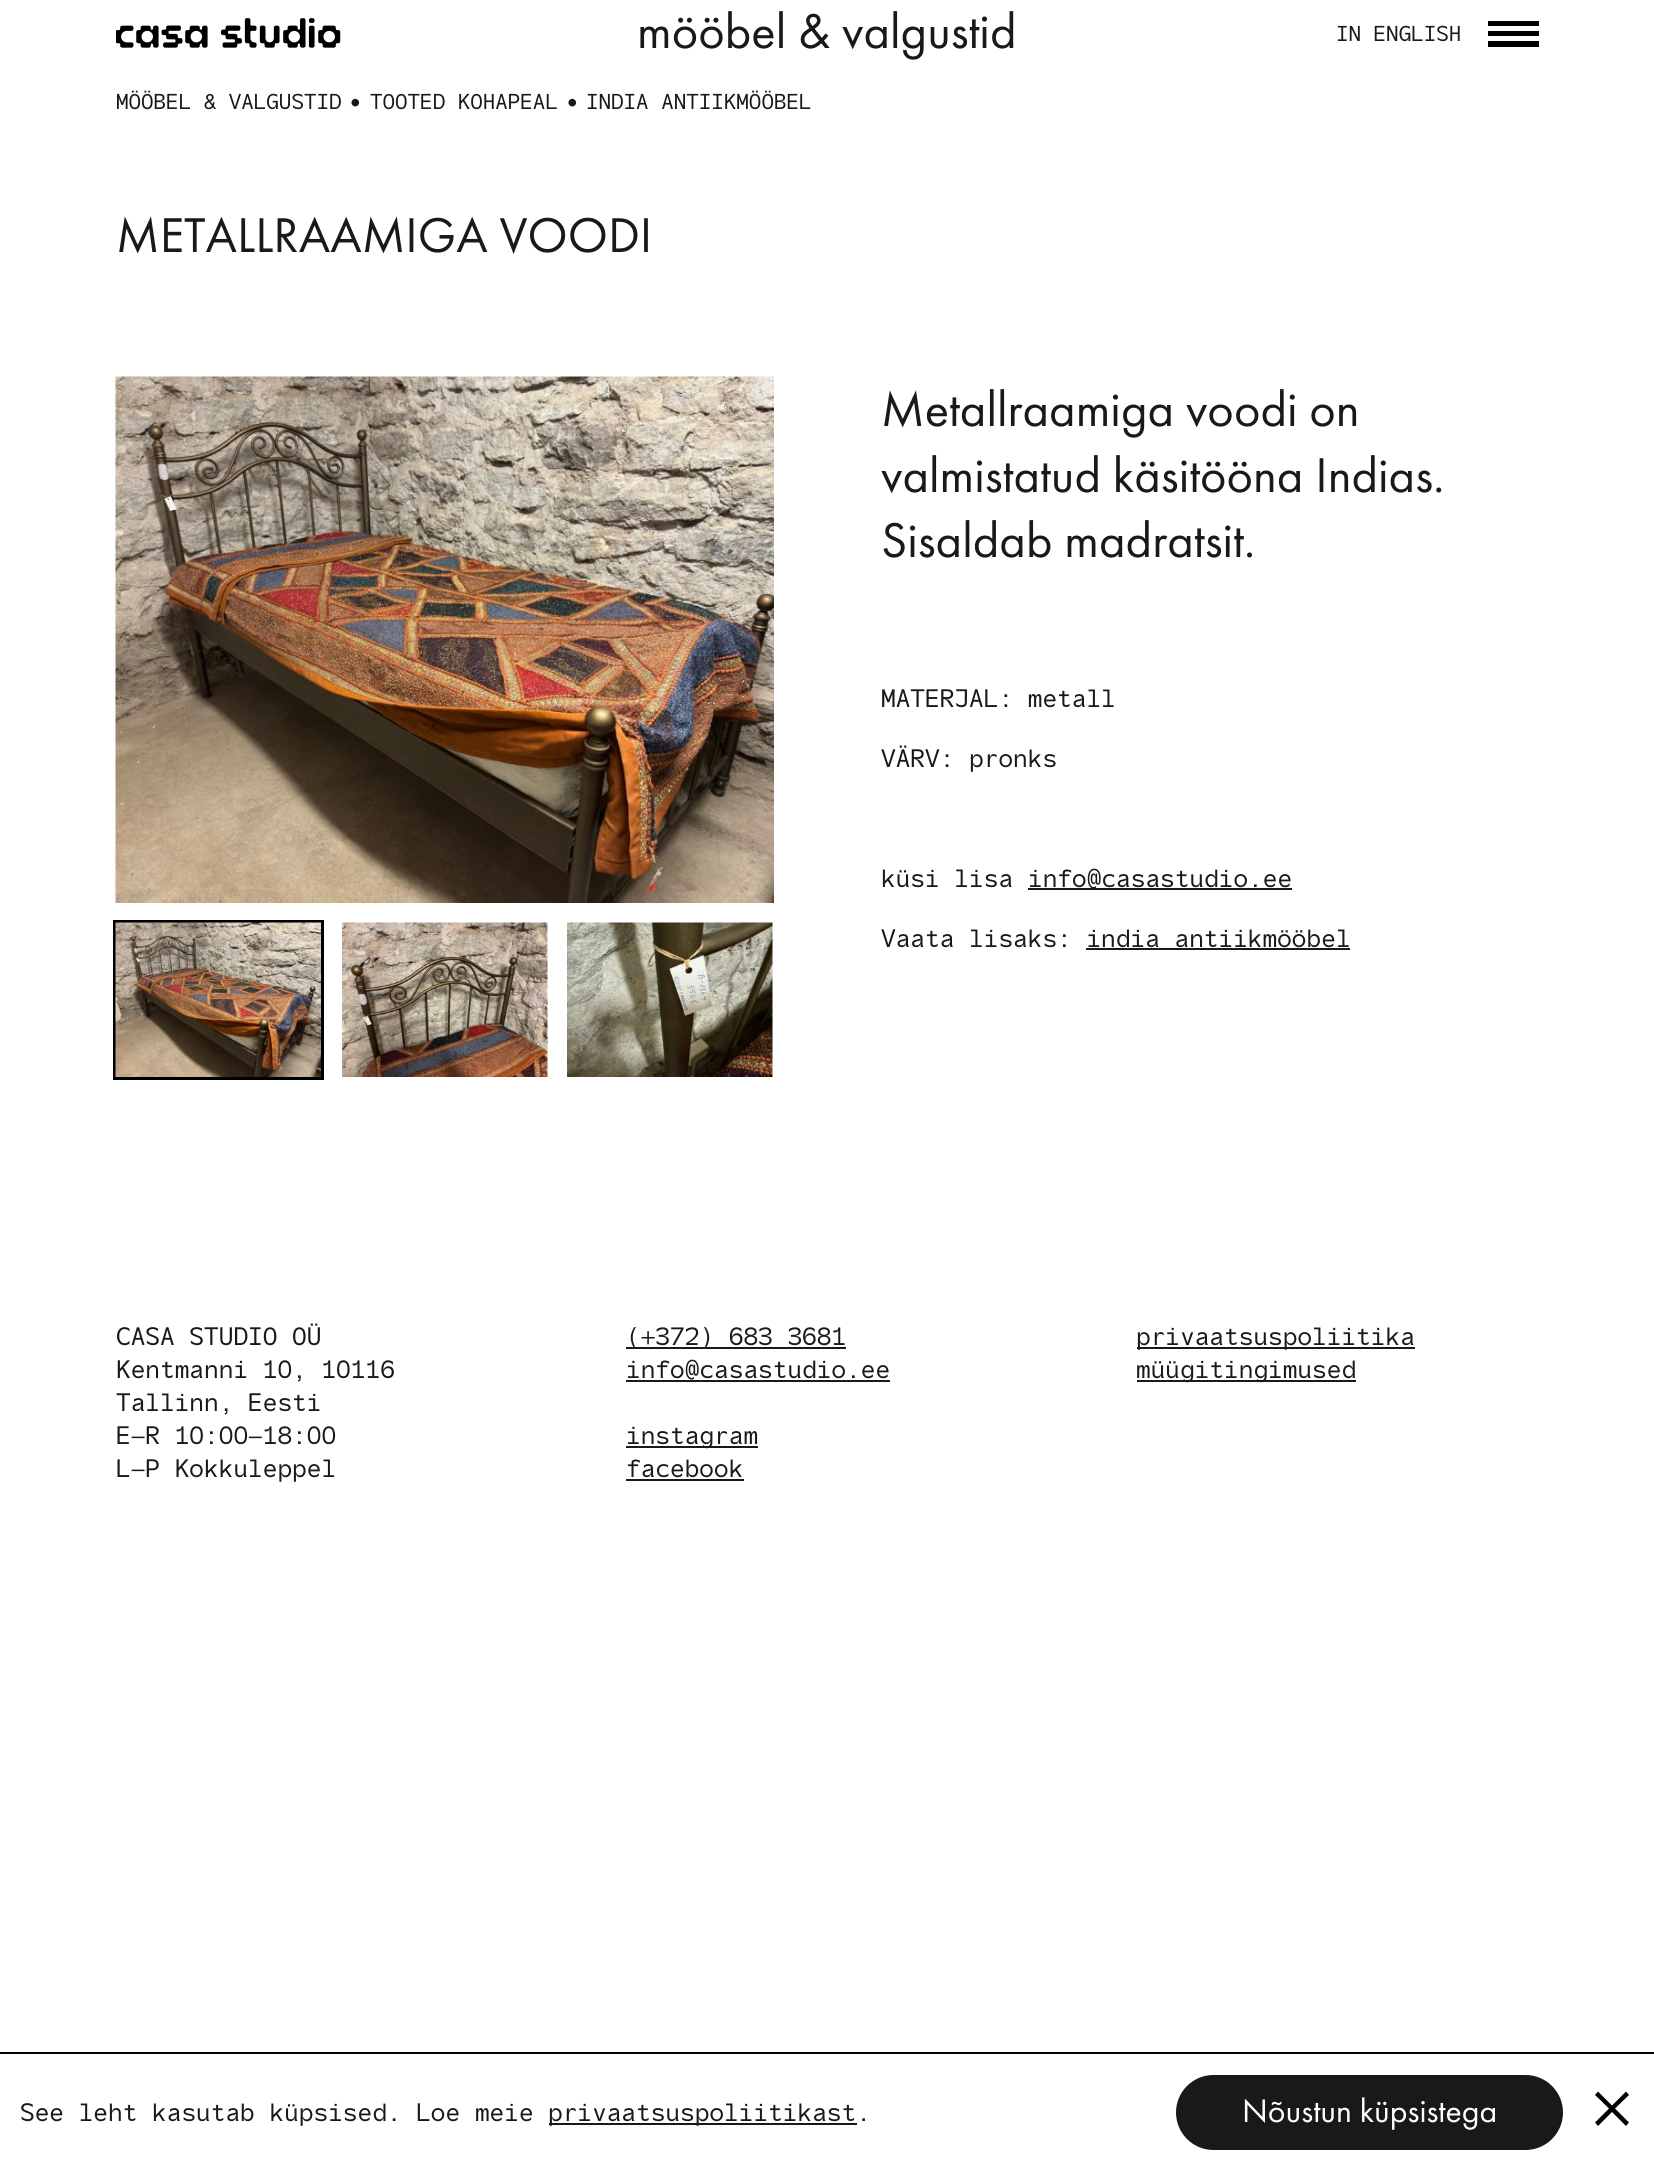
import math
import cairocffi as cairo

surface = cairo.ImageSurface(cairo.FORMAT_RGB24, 1654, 2168)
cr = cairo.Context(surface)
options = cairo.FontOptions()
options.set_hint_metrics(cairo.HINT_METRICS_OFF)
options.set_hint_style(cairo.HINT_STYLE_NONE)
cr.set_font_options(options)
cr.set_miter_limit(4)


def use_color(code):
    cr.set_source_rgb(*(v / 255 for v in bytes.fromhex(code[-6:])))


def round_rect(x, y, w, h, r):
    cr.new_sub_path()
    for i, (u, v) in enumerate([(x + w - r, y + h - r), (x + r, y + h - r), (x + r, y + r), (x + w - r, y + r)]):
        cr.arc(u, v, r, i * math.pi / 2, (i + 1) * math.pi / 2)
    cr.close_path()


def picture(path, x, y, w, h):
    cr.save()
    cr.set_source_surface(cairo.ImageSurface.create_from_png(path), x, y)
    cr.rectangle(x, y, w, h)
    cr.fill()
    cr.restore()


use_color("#ffffff")
cr.paint()
picture("img1.png", 116, 18, 225, 30)
cr.select_font_face("Futura PT")
cr.set_font_size(50.6)
use_color("#1a191a")
cr.move_to(637, 48)
cr.show_text("mööbel & valgustid")
cr.select_font_face("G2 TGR")
cr.set_font_size(21.6)
cr.move_to(1336, 41)
cr.show_text("IN ENGLISH")
use_color("#000000")
cr.rectangle(1488, 21, 51, 5)
cr.fill()
cr.rectangle(1488, 31, 51, 5)
cr.fill()
cr.rectangle(1488, 41, 51, 6)
cr.fill()
use_color("#1a191a")
cr.move_to(116, 109)
cr.show_text("MÖÖBEL & VALGUSTID")
cr.move_to(349, 109)
cr.show_text("•")
cr.move_to(370, 109)
cr.show_text("TOOTED KOHAPEAL")
cr.move_to(566, 109)
cr.show_text("•")
cr.move_to(586, 109)
cr.show_text("INDIA ANTIIKMÖÖBEL")
cr.select_font_face("Futura PT")
cr.set_font_size(50.6)
cr.move_to(116, 252)
cr.show_text("METALLRAAMIGA VOODI")
picture("img2.png", 115, 376, 659, 527)
cr.rectangle(114.5, 921.5, 208, 157)
use_color("#000000")
cr.set_line_width(3)
cr.stroke()
picture("img3.png", 115, 922, 206, 155)
picture("img4.png", 342, 922, 206, 155)
picture("img5.png", 567, 922, 206, 155)
use_color("#1a191a")
cr.move_to(881, 426)
cr.show_text("Metallraamiga voodi on")
cr.move_to(881, 492)
cr.show_text("valmistatud käsitööna Indias.")
cr.move_to(881, 557)
cr.show_text("Sisaldab madratsit.")
cr.select_font_face("G2 TGR")
cr.set_font_size(25.3)
cr.move_to(881, 707)
cr.show_text("MATERJAL: metall")
cr.move_to(881, 767)
cr.show_text("VÄRV: pronks")
cr.move_to(881, 887)
cr.show_text("küsi lisa")
cr.rectangle(1028, 888, 264, 2)
cr.fill()
cr.move_to(1028, 887)
cr.show_text("info@casastudio.ee")
cr.move_to(881, 947)
cr.show_text("Vaata lisaks: india antiikmööbel")
cr.rectangle(1086, 948, 264, 2)
cr.fill()
cr.move_to(116, 1345)
cr.show_text("CASA STUDIO OÜ")
cr.move_to(116, 1378)
cr.show_text("Kentmanni 10, 10116")
cr.move_to(116, 1411)
cr.show_text("Tallinn, Eesti")
cr.move_to(116, 1444)
cr.show_text("E–R 10:00–18:00")
cr.move_to(116, 1477)
cr.show_text("L–P Kokkuleppel")
cr.rectangle(626, 1347, 220, 2)
cr.fill()
cr.move_to(626, 1345)
cr.show_text("(+372) 683 3681")
cr.move_to(626, 1378)
cr.show_text("info@casastudio.ee")
cr.rectangle(626, 1380, 264, 2)
cr.fill()
cr.rectangle(626, 1446, 132, 2)
cr.fill()
cr.move_to(626, 1444)
cr.show_text("instagram")
cr.move_to(626, 1477)
cr.show_text("facebook")
cr.rectangle(626, 1479, 118, 2)
cr.fill()
cr.rectangle(1137, 1347, 278, 2)
cr.fill()
cr.move_to(1136, 1345)
cr.show_text("privaatsuspoliitika")
cr.rectangle(1137, 1380, 219, 2)
cr.fill()
cr.move_to(1136, 1378)
cr.show_text("müügitingimused")
use_color("#000000")
cr.rectangle(0, 2052, 1654, 2)
cr.fill()
use_color("#1a191a")
cr.move_to(20, 2121)
cr.show_text("See leht kasutab küpsised. Loe meie")
cr.rectangle(549, 2123, 308, 2)
cr.fill()
cr.move_to(548, 2121)
cr.show_text("privaatsuspoliitikast.")
round_rect(1177, 2076, 385, 73, 36.5)
cr.fill_preserve()
cr.set_line_width(2)
cr.stroke()
cr.select_font_face("Futura PT")
cr.set_font_size(33.75)
use_color("#ffffff")
cr.move_to(1242, 2122)
cr.show_text("Nõustun küpsistega")
use_color("#000000")
cr.new_path()
cr.move_to(1629, 2095)
cr.line_to(1626, 2091.5)
cr.line_to(1612, 2105.5)
cr.line_to(1598, 2091.5)
cr.line_to(1595, 2095)
cr.line_to(1609, 2108.5)
cr.line_to(1595, 2122.5)
cr.line_to(1598, 2126)
cr.line_to(1612, 2112)
cr.line_to(1626, 2126)
cr.line_to(1629, 2122.5)
cr.line_to(1615, 2108.5)
cr.close_path()
cr.fill()
surface.write_to_png("result.png")
